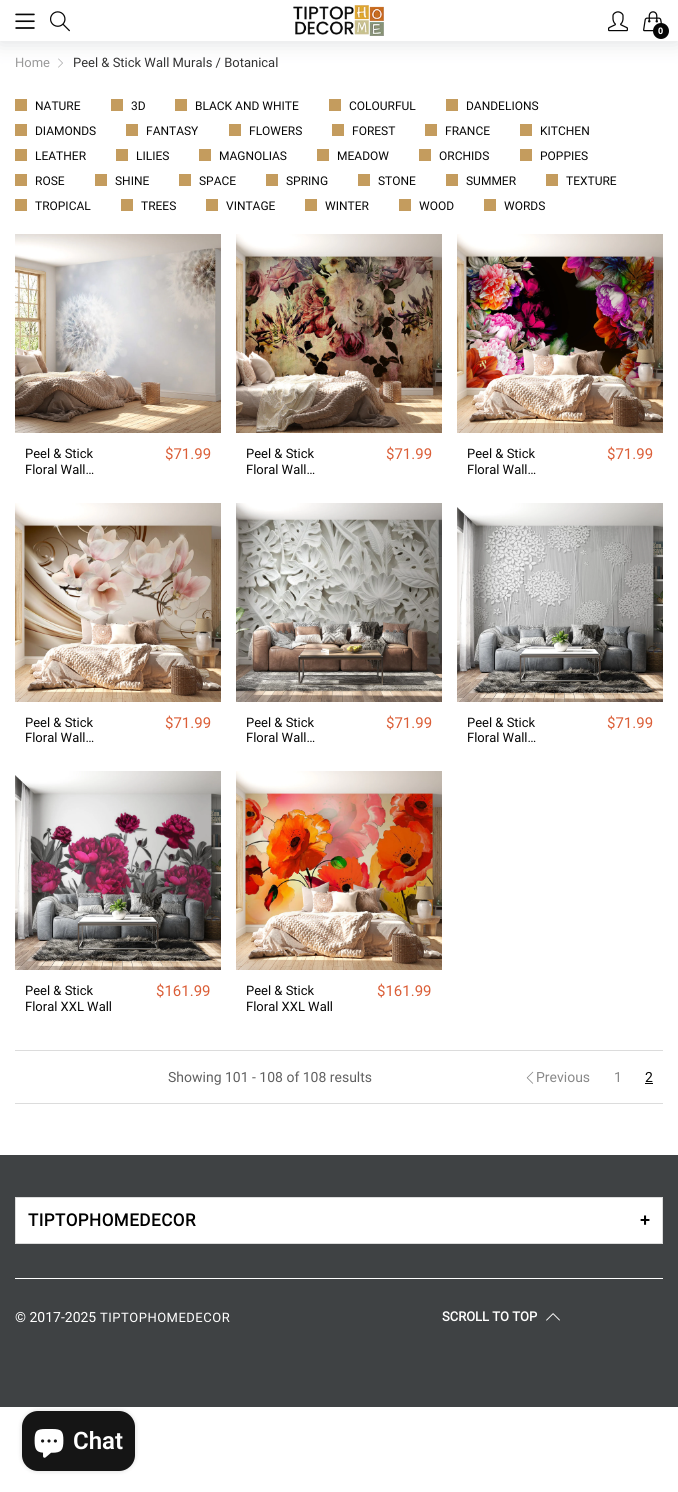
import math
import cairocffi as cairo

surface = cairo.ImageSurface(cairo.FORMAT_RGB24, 678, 1492)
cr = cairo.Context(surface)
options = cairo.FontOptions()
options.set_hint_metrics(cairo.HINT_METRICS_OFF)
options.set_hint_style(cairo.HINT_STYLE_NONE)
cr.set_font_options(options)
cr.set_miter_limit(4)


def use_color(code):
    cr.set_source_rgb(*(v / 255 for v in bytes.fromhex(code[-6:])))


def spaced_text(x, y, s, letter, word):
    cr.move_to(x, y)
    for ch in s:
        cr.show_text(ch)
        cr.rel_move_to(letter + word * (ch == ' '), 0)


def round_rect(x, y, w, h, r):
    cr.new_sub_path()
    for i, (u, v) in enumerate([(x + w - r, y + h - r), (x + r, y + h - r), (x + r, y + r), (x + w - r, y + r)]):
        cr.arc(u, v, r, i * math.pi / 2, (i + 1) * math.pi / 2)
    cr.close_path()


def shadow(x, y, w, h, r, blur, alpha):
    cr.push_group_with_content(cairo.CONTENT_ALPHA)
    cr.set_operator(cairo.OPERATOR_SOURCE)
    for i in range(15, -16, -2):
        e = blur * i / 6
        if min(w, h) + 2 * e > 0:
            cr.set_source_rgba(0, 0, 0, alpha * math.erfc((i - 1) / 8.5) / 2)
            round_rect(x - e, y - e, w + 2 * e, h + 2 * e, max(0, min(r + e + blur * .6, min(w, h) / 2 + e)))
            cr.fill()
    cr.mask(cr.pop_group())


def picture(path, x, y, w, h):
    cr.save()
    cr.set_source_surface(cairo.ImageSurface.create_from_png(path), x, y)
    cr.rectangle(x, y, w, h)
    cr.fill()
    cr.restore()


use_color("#ffffff")
cr.paint()
picture("img6.png", 58, 58, 5, 10)
use_color("#babfc2")
shadow(0, 1, 678, 41, 0, 10, 0.5)
use_color("#ffffff")
cr.rectangle(0, 0, 678, 41)
cr.fill()
picture("img1.png", 15, 13, 20, 16)
picture("img2.png", 50, 11, 20, 21)
picture("img3.png", 293, 5, 91, 31)
picture("img4.png", 608, 11, 20, 21)
picture("img5.png", 643, 11, 19, 21)
use_color("#060606")
cr.arc(661, 31, 8, 0, 2 * math.pi)
cr.fill()
cr.select_font_face("Open Sans", cairo.FONT_SLANT_NORMAL, cairo.FONT_WEIGHT_BOLD)
cr.set_font_size(9)
use_color("#ffffff")
cr.move_to(658, 34)
cr.show_text("0")
cr.select_font_face("Roboto")
cr.set_font_size(13)
use_color("#999999")
cr.move_to(15, 67)
cr.show_text("Home")
use_color("#333333")
cr.move_to(73, 67)
cr.show_text("Peel & Stick Wall Murals / Botanical")
use_color("#c49c5e")
cr.rectangle(15, 99, 12, 12)
cr.fill()
cr.set_font_size(12)
use_color("#060606")
cr.move_to(35, 110)
cr.show_text("NATURE")
use_color("#c49c5e")
cr.rectangle(111, 99, 12, 12)
cr.fill()
use_color("#060606")
cr.move_to(131, 110)
cr.show_text("3D")
use_color("#c49c5e")
cr.rectangle(175, 99, 12, 12)
cr.fill()
use_color("#060606")
cr.move_to(195, 110)
cr.show_text("BLACK AND WHITE")
use_color("#c49c5e")
cr.rectangle(329, 99, 12, 12)
cr.fill()
use_color("#060606")
cr.move_to(349, 110)
cr.show_text("COLOURFUL")
use_color("#c49c5e")
cr.rectangle(446, 99, 12, 12)
cr.fill()
use_color("#060606")
cr.move_to(466, 110)
cr.show_text("DANDELIONS")
use_color("#c49c5e")
cr.rectangle(15, 124, 12, 12)
cr.fill()
use_color("#060606")
cr.move_to(35, 135)
cr.show_text("DIAMONDS")
use_color("#c49c5e")
cr.rectangle(126, 124, 12, 12)
cr.fill()
use_color("#060606")
cr.move_to(146, 135)
cr.show_text("FANTASY")
use_color("#c49c5e")
cr.rectangle(229, 124, 12, 12)
cr.fill()
use_color("#060606")
cr.move_to(249, 135)
cr.show_text("FLOWERS")
use_color("#c49c5e")
cr.rectangle(332, 124, 12, 12)
cr.fill()
use_color("#060606")
cr.move_to(352, 135)
cr.show_text("FOREST")
use_color("#c49c5e")
cr.rectangle(425, 124, 12, 12)
cr.fill()
use_color("#060606")
cr.move_to(445, 135)
cr.show_text("FRANCE")
use_color("#c49c5e")
cr.rectangle(520, 124, 12, 12)
cr.fill()
use_color("#060606")
cr.move_to(540, 135)
cr.show_text("KITCHEN")
use_color("#c49c5e")
cr.rectangle(15, 149, 12, 12)
cr.fill()
use_color("#060606")
cr.move_to(35, 160)
cr.show_text("LEATHER")
use_color("#c49c5e")
cr.rectangle(116, 149, 12, 12)
cr.fill()
use_color("#060606")
cr.move_to(136, 160)
cr.show_text("LILIES")
use_color("#c49c5e")
cr.rectangle(199, 149, 12, 12)
cr.fill()
use_color("#060606")
cr.move_to(219, 160)
cr.show_text("MAGNOLIAS")
use_color("#c49c5e")
cr.rectangle(317, 149, 12, 12)
cr.fill()
use_color("#060606")
cr.move_to(337, 160)
cr.show_text("MEADOW")
use_color("#c49c5e")
cr.rectangle(419, 149, 12, 12)
cr.fill()
use_color("#060606")
cr.move_to(439, 160)
cr.show_text("ORCHIDS")
use_color("#c49c5e")
cr.rectangle(520, 149, 12, 12)
cr.fill()
use_color("#060606")
cr.move_to(540, 160)
cr.show_text("POPPIES")
use_color("#c49c5e")
cr.rectangle(15, 174, 12, 12)
cr.fill()
use_color("#060606")
cr.move_to(35, 185)
cr.show_text("ROSE")
use_color("#c49c5e")
cr.rectangle(95, 174, 12, 12)
cr.fill()
use_color("#060606")
cr.move_to(115, 185)
cr.show_text("SHINE")
use_color("#c49c5e")
cr.rectangle(179, 174, 12, 12)
cr.fill()
use_color("#060606")
cr.move_to(199, 185)
cr.show_text("SPACE")
use_color("#c49c5e")
cr.rectangle(266, 174, 12, 12)
cr.fill()
use_color("#060606")
cr.move_to(286, 185)
cr.show_text("SPRING")
use_color("#c49c5e")
cr.rectangle(358, 174, 12, 12)
cr.fill()
use_color("#060606")
cr.move_to(378, 185)
cr.show_text("STONE")
use_color("#c49c5e")
cr.rectangle(446, 174, 12, 12)
cr.fill()
use_color("#060606")
cr.move_to(466, 185)
cr.show_text("SUMMER")
use_color("#c49c5e")
cr.rectangle(546, 174, 12, 12)
cr.fill()
use_color("#060606")
cr.move_to(566, 185)
cr.show_text("TEXTURE")
use_color("#c49c5e")
cr.rectangle(15, 199, 12, 12)
cr.fill()
use_color("#060606")
cr.move_to(35, 210)
cr.show_text("TROPICAL")
use_color("#c49c5e")
cr.rectangle(121, 199, 12, 12)
cr.fill()
use_color("#060606")
cr.move_to(141, 210)
cr.show_text("TREES")
use_color("#c49c5e")
cr.rectangle(206, 199, 12, 12)
cr.fill()
use_color("#060606")
cr.move_to(226, 210)
cr.show_text("VINTAGE")
use_color("#c49c5e")
cr.rectangle(305, 199, 12, 12)
cr.fill()
use_color("#060606")
cr.move_to(325, 210)
cr.show_text("WINTER")
use_color("#c49c5e")
cr.rectangle(399, 199, 12, 12)
cr.fill()
use_color("#060606")
cr.move_to(419, 210)
cr.show_text("WOOD")
use_color("#c49c5e")
cr.rectangle(484, 199, 12, 12)
cr.fill()
use_color("#060606")
cr.move_to(504, 210)
cr.show_text("WORDS")
picture("img7.png", 15, 234, 206, 199)
cr.set_font_size(13)
cr.move_to(25, 458)
cr.show_text("Peel & Stick")
cr.move_to(25, 474)
cr.show_text("Floral Wall…")
cr.set_font_size(15)
use_color("#db5e37")
cr.move_to(165, 459)
cr.show_text("$71.99")
picture("img8.png", 236, 234, 206, 199)
cr.set_font_size(13)
use_color("#060606")
cr.move_to(246, 458)
cr.show_text("Peel & Stick")
cr.move_to(246, 474)
cr.show_text("Floral Wall…")
cr.set_font_size(15)
use_color("#db5e37")
cr.move_to(386, 459)
cr.show_text("$71.99")
picture("img9.png", 457, 234, 206, 199)
cr.set_font_size(13)
use_color("#060606")
cr.move_to(467, 458)
cr.show_text("Peel & Stick")
cr.move_to(467, 474)
cr.show_text("Floral Wall…")
cr.set_font_size(15)
use_color("#db5e37")
cr.move_to(607, 459)
cr.show_text("$71.99")
picture("img10.png", 15, 503, 206, 199)
cr.set_font_size(13)
use_color("#060606")
cr.move_to(25, 727)
cr.show_text("Peel & Stick")
cr.move_to(25, 742)
cr.show_text("Floral Wall…")
cr.set_font_size(15)
use_color("#db5e37")
cr.move_to(165, 728)
cr.show_text("$71.99")
picture("img11.png", 236, 503, 206, 199)
cr.set_font_size(13)
use_color("#060606")
cr.move_to(246, 727)
cr.show_text("Peel & Stick")
cr.move_to(246, 742)
cr.show_text("Floral Wall…")
cr.set_font_size(15)
use_color("#db5e37")
cr.move_to(386, 728)
cr.show_text("$71.99")
picture("img12.png", 457, 503, 206, 199)
cr.set_font_size(13)
use_color("#060606")
cr.move_to(467, 727)
cr.show_text("Peel & Stick")
cr.move_to(467, 742)
cr.show_text("Floral Wall…")
cr.set_font_size(15)
use_color("#db5e37")
cr.move_to(607, 728)
cr.show_text("$71.99")
picture("img13.png", 15, 771, 206, 199)
cr.set_font_size(13)
use_color("#060606")
cr.move_to(25, 995)
cr.show_text("Peel & Stick")
cr.move_to(25, 1011)
cr.show_text("Floral XXL Wall")
cr.set_font_size(15)
use_color("#db5e37")
cr.move_to(156, 996)
cr.show_text("$161.99")
picture("img14.png", 236, 771, 206, 199)
cr.set_font_size(13)
use_color("#060606")
cr.move_to(246, 995)
cr.show_text("Peel & Stick")
cr.move_to(246, 1011)
cr.show_text("Floral XXL Wall")
cr.set_font_size(15)
use_color("#db5e37")
cr.move_to(377, 996)
cr.show_text("$161.99")
use_color("#dcdcdc")
cr.rectangle(15, 1050, 648, 1)
cr.fill()
cr.rectangle(15, 1103, 648, 1)
cr.fill()
cr.set_font_size(14)
use_color("#606060")
cr.move_to(168, 1082)
cr.show_text("Showing 101 - 108 of 108 results")
picture("img15.png", 526, 1071, 8, 13)
use_color("#888888")
cr.move_to(536, 1082)
cr.show_text("Previous")
cr.move_to(614, 1082)
cr.show_text("1")
use_color("#060606")
cr.move_to(645, 1082)
cr.show_text("2")
cr.rectangle(645, 1083, 8, 1)
cr.fill()
use_color("#3f4244")
cr.rectangle(0, 1155, 678, 252)
cr.fill()
use_color("#ffffff")
cr.rectangle(15.5, 1197.5, 647, 46)
cr.fill_preserve()
use_color("#dcdcdc")
cr.set_line_width(1)
cr.stroke()
cr.select_font_face("Roboto", cairo.FONT_SLANT_NORMAL, cairo.FONT_WEIGHT_BOLD)
cr.set_font_size(17)
use_color("#000000")
spaced_text(28, 1226, "TIPTOPHOMEDECOR", 0.5, 0)
spaced_text(640, 1226, "+", 0.5, 0)
use_color("#ffffff")
cr.rectangle(15, 1278, 648, 1)
cr.fill()
cr.select_font_face("Roboto")
cr.set_font_size(14)
cr.move_to(15, 1322)
cr.show_text("© 2017-2025")
cr.set_font_size(13)
spaced_text(100, 1322, "TIPTOPHOMEDECOR", 0.5, 0)
cr.select_font_face("Roboto", cairo.FONT_SLANT_NORMAL, cairo.FONT_WEIGHT_BOLD)
cr.move_to(442, 1321)
cr.show_text("SCROLL TO TOP")
picture("img16.png", 546, 1313, 14, 8)
use_color("#000000")
shadow(22, 1411, 113, 60, 16, 2.5, 0.15)
use_color("#151515")
round_rect(22, 1411, 113, 60, 16)
cr.fill()
picture("img17.png", 34, 1429, 30, 29)
cr.select_font_face("Roboto SemiBold")
cr.set_font_size(24)
use_color("#ffffff")
cr.move_to(73, 1449)
cr.show_text("Chat")
surface.write_to_png("result.png")
